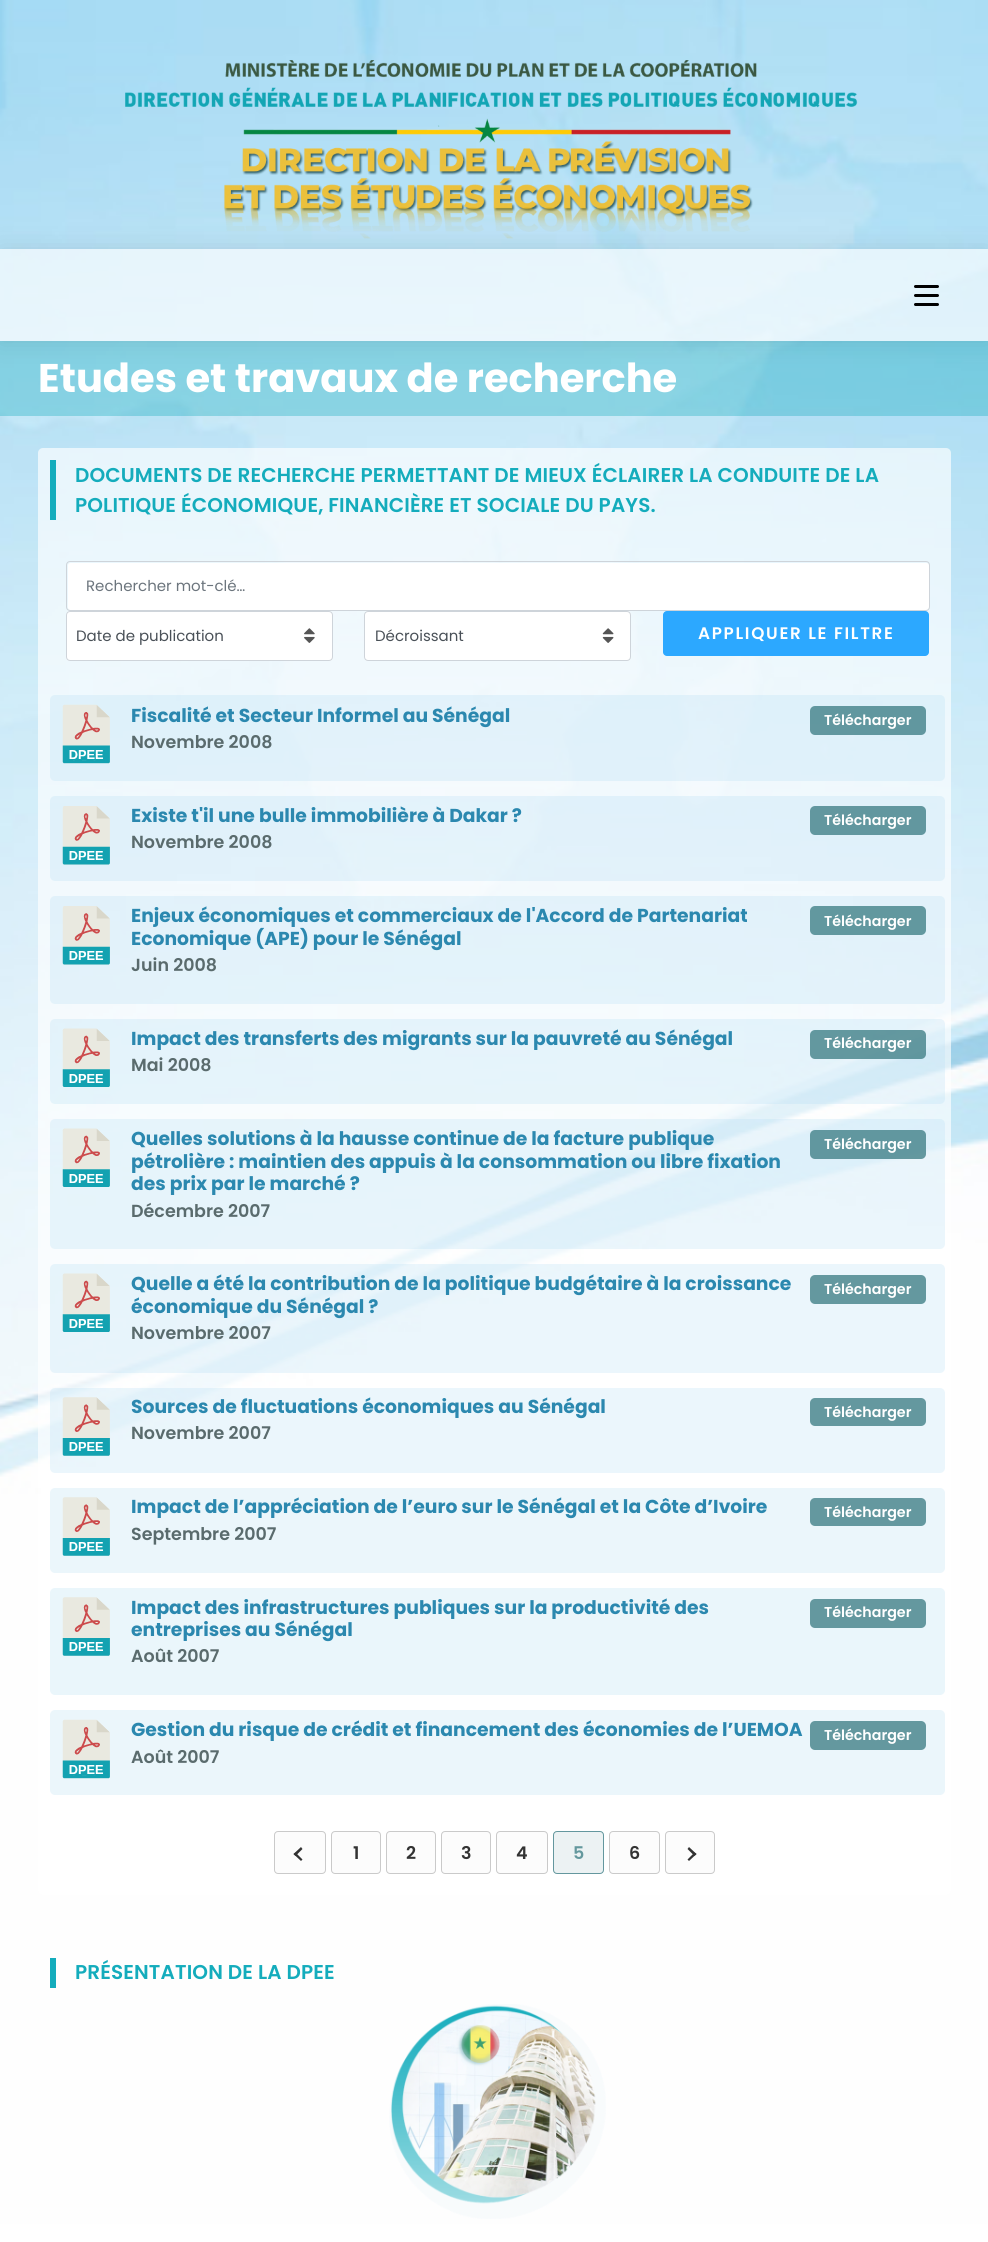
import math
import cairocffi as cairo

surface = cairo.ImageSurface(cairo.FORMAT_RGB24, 988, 2242)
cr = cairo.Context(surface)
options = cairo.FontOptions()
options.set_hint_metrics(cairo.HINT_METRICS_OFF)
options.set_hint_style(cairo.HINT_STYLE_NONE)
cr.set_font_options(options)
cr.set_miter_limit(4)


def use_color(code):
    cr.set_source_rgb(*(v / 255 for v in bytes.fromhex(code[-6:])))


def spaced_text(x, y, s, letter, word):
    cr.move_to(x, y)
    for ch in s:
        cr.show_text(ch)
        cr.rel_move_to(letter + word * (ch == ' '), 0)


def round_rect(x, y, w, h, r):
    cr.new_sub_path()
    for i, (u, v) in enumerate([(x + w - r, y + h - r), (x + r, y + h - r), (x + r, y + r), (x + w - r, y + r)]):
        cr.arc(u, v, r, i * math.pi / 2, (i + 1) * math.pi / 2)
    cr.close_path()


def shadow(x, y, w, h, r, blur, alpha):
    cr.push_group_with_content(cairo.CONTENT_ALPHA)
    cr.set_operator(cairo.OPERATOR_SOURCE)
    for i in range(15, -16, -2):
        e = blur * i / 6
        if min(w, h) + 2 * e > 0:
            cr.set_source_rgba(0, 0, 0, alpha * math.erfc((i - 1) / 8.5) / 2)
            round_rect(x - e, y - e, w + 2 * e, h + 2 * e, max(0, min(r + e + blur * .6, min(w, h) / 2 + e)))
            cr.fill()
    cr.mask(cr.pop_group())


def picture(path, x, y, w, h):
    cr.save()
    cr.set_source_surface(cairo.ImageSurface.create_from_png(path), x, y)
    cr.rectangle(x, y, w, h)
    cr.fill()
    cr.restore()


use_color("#ffffff")
cr.paint()
picture("img1.png", 0, 0, 988, 2242)
picture("img2.png", 125, 60, 733, 179)
cr.set_source_rgba(0.078, 0.675, 0.737, 0.34)
cr.rectangle(0, 341, 988, 75)
cr.fill()
cr.save()
cr.set_fill_rule(cairo.FILL_RULE_EVEN_ODD)
cr.new_path()
cr.move_to(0, 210)
cr.line_to(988, 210)
cr.line_to(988, 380)
cr.line_to(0, 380)
cr.close_path()
cr.move_to(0, 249)
cr.line_to(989, 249)
cr.line_to(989, 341)
cr.line_to(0, 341)
cr.close_path()
cr.clip()
use_color("#000000")
shadow(0, 249, 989, 92, 0, 12.5, 0.1)
cr.restore()
cr.set_source_rgba(1, 1, 1, 0.65)
cr.rectangle(0, 249, 988, 92)
cr.fill()
use_color("#000000")
round_rect(914, 294, 25, 3, 1.5)
cr.fill()
round_rect(914, 285, 25, 3, 1.5)
cr.fill()
round_rect(914, 303, 25, 3, 1.5)
cr.fill()
cr.select_font_face("Poppins", cairo.FONT_SLANT_NORMAL, cairo.FONT_WEIGHT_BOLD)
cr.set_font_size(40)
use_color("#ffffff")
cr.move_to(38, 392)
cr.show_text("Etudes et travaux de recherche")
cr.set_source_rgba(1, 1, 1, 0.65)
round_rect(38, 448, 913, 1447, 5)
cr.fill()
use_color("#14acbc")
cr.rectangle(50, 460, 6, 60)
cr.fill()
cr.select_font_face("Poppins SemiBold")
cr.set_font_size(20)
spaced_text(75, 482, "DOCUMENTS DE RECHERCHE PERMETTANT DE MIEUX ÉCLAIRER LA CONDUITE DE LA", 0.12, 0)
spaced_text(75, 512, "POLITIQUE ÉCONOMIQUE, FINANCIÈRE ET SOCIALE DU PAYS.", 0.12, 0)
use_color("#ffffff")
round_rect(68, 563, 861, 47, 2.5)
cr.fill()
round_rect(66.5, 561.5, 863, 49, 3.5)
use_color("#ced4da")
cr.set_line_width(1)
cr.stroke()
cr.select_font_face("Poppins")
cr.set_font_size(15)
use_color("#6c757d")
cr.move_to(86, 591)
cr.show_text("Rechercher mot-clé…")
use_color("#ffffff")
round_rect(66, 611, 267, 50, 4)
cr.fill()
picture("img3.png", 304, 628, 11, 15)
round_rect(66.5, 611.5, 266, 49, 3.5)
use_color("#ced4da")
cr.stroke()
use_color("#495057")
cr.move_to(76, 641)
cr.show_text("Date de publication")
use_color("#ffffff")
round_rect(364, 611, 267, 50, 4)
cr.fill()
picture("img4.png", 602, 628, 12, 15)
round_rect(364.5, 611.5, 266, 49, 3.5)
use_color("#ced4da")
cr.stroke()
use_color("#495057")
cr.move_to(375, 641)
cr.show_text("Décroissant")
use_color("#2ca8ff")
round_rect(663, 611, 266, 45, 4)
cr.fill()
cr.select_font_face("Poppins SemiBold")
cr.set_font_size(16.75)
use_color("#ffffff")
spaced_text(698, 639, "APPLIQUER LE FILTRE", 1.7, 0)
cr.set_source_rgba(0.671, 0.855, 0.945, 0.24)
round_rect(50, 695, 895, 86, 5)
cr.fill()
picture("img5.png", 62, 704, 48, 60)
cr.select_font_face("Poppins", cairo.FONT_SLANT_NORMAL, cairo.FONT_WEIGHT_BOLD)
cr.set_font_size(18.75)
use_color("#2b88af")
cr.move_to(131, 722)
cr.show_text("Fiscalité et Secteur Informel au Sénégal")
cr.select_font_face("Poppins SemiBold")
cr.set_font_size(17.5)
use_color("#5a6b6d")
cr.move_to(131, 748)
cr.show_text("Novembre 2008")
cr.set_source_rgba(0.259, 0.506, 0.533, 0.8)
round_rect(810, 706, 116, 29, 5)
cr.fill()
cr.set_font_size(14.25)
use_color("#ffffff")
cr.move_to(824, 725)
cr.show_text("Télécharger")
cr.set_source_rgba(0.671, 0.855, 0.945, 0.24)
round_rect(50, 796, 895, 85, 5)
cr.fill()
picture("img6.png", 62, 806, 48, 59)
cr.select_font_face("Poppins", cairo.FONT_SLANT_NORMAL, cairo.FONT_WEIGHT_BOLD)
cr.set_font_size(18.75)
use_color("#2b88af")
cr.move_to(131, 822)
cr.show_text("Existe t'il une bulle immobilière à Dakar ?")
cr.select_font_face("Poppins SemiBold")
cr.set_font_size(17.5)
use_color("#5a6b6d")
cr.move_to(131, 848)
cr.show_text("Novembre 2008")
use_color("#62979f")
round_rect(810, 806, 116, 29, 5)
cr.fill()
cr.set_font_size(14.25)
use_color("#ffffff")
cr.move_to(824, 825)
cr.show_text("Télécharger")
cr.set_source_rgba(0.671, 0.855, 0.945, 0.24)
round_rect(50, 896, 895, 108, 5)
cr.fill()
picture("img7.png", 62, 906, 48, 59)
cr.select_font_face("Poppins", cairo.FONT_SLANT_NORMAL, cairo.FONT_WEIGHT_BOLD)
cr.set_font_size(18.75)
use_color("#2b88af")
cr.move_to(131, 922)
cr.show_text("Enjeux économiques et commerciaux de l'Accord de Partenariat")
cr.move_to(131, 945)
cr.show_text("Economique (APE) pour le Sénégal")
cr.select_font_face("Poppins SemiBold")
cr.set_font_size(17.5)
use_color("#5a6b6d")
cr.move_to(131, 971)
cr.show_text("Juin 2008")
use_color("#62989f")
round_rect(810, 906, 116, 29, 5)
cr.fill()
cr.set_font_size(14.25)
use_color("#ffffff")
cr.move_to(824, 926)
cr.show_text("Télécharger")
cr.set_source_rgba(0.671, 0.855, 0.945, 0.24)
round_rect(50, 1019, 895, 85, 5)
cr.fill()
picture("img8.png", 62, 1028, 48, 59)
cr.select_font_face("Poppins", cairo.FONT_SLANT_NORMAL, cairo.FONT_WEIGHT_BOLD)
cr.set_font_size(18.75)
use_color("#2b88af")
cr.move_to(131, 1045)
cr.show_text("Impact des transferts des migrants sur la pauvreté au Sénégal")
cr.select_font_face("Poppins SemiBold")
cr.set_font_size(17.5)
use_color("#5a6b6d")
cr.move_to(131, 1071)
cr.show_text("Mai 2008")
cr.set_source_rgba(0.259, 0.506, 0.533, 0.8)
round_rect(810, 1030, 116, 29, 5)
cr.fill()
cr.set_font_size(14.25)
use_color("#ffffff")
cr.move_to(824, 1048)
cr.show_text("Télécharger")
cr.set_source_rgba(0.671, 0.855, 0.945, 0.24)
round_rect(50, 1119, 895, 130, 5)
cr.fill()
picture("img9.png", 62, 1128, 48, 59)
cr.select_font_face("Poppins", cairo.FONT_SLANT_NORMAL, cairo.FONT_WEIGHT_BOLD)
cr.set_font_size(18.75)
use_color("#2b88af")
cr.move_to(131, 1145)
cr.show_text("Quelles solutions à la hausse continue de la facture publique")
cr.move_to(131, 1168)
cr.show_text("pétrolière : maintien des appuis à la consommation ou libre fixation")
cr.move_to(131, 1190)
cr.show_text("des prix par le marché ?")
cr.select_font_face("Poppins SemiBold")
cr.set_font_size(17.5)
use_color("#5a6b6d")
cr.move_to(131, 1217)
cr.show_text("Décembre 2007")
cr.set_source_rgba(0.259, 0.506, 0.533, 0.8)
round_rect(810, 1130, 116, 29, 5)
cr.fill()
cr.set_font_size(14.25)
use_color("#ffffff")
cr.move_to(824, 1149)
cr.show_text("Télécharger")
cr.set_source_rgba(0.671, 0.855, 0.945, 0.24)
round_rect(50, 1264, 895, 109, 5)
cr.fill()
picture("img10.png", 62, 1273, 48, 59)
cr.select_font_face("Poppins", cairo.FONT_SLANT_NORMAL, cairo.FONT_WEIGHT_BOLD)
cr.set_font_size(18.75)
use_color("#2b88af")
cr.move_to(131, 1290)
cr.show_text("Quelle a été la contribution de la politique budgétaire à la croissance")
cr.move_to(131, 1313)
cr.show_text("économique du Sénégal ?")
cr.select_font_face("Poppins SemiBold")
cr.set_font_size(17.5)
use_color("#5a6b6d")
cr.move_to(131, 1339)
cr.show_text("Novembre 2007")
use_color("#64989f")
round_rect(810, 1275, 116, 29, 5)
cr.fill()
cr.set_font_size(14.25)
use_color("#ffffff")
cr.move_to(824, 1294)
cr.show_text("Télécharger")
cr.set_source_rgba(0.671, 0.855, 0.945, 0.24)
round_rect(50, 1388, 895, 85, 5)
cr.fill()
picture("img11.png", 62, 1397, 48, 59)
cr.select_font_face("Poppins", cairo.FONT_SLANT_NORMAL, cairo.FONT_WEIGHT_BOLD)
cr.set_font_size(18.75)
use_color("#2b88af")
cr.move_to(131, 1413)
cr.show_text("Sources de fluctuations économiques au Sénégal")
cr.select_font_face("Poppins SemiBold")
cr.set_font_size(17.5)
use_color("#5a6b6d")
cr.move_to(131, 1439)
cr.show_text("Novembre 2007")
use_color("#64989f")
round_rect(810, 1398, 116, 28, 5)
cr.fill()
cr.set_font_size(14.25)
use_color("#ffffff")
cr.move_to(824, 1417)
cr.show_text("Télécharger")
use_color("#ebf6fb")
round_rect(50, 1488, 895, 85, 5)
cr.fill()
picture("img12.png", 62, 1497, 48, 59)
cr.select_font_face("Poppins", cairo.FONT_SLANT_NORMAL, cairo.FONT_WEIGHT_BOLD)
cr.set_font_size(18.75)
use_color("#2b88af")
cr.move_to(131, 1513)
cr.show_text("Impact de l’appréciation de l’euro sur le Sénégal et la Côte d’Ivoire")
cr.select_font_face("Poppins SemiBold")
cr.set_font_size(17.5)
use_color("#5a6b6d")
cr.move_to(131, 1540)
cr.show_text("Septembre 2007")
use_color("#64989f")
round_rect(810, 1498, 116, 28, 5)
cr.fill()
cr.set_font_size(14.25)
use_color("#ffffff")
cr.move_to(824, 1517)
cr.show_text("Télécharger")
use_color("#eaf6fb")
round_rect(50, 1588, 895, 107, 5)
cr.fill()
picture("img13.png", 62, 1597, 48, 59)
cr.select_font_face("Poppins", cairo.FONT_SLANT_NORMAL, cairo.FONT_WEIGHT_BOLD)
cr.set_font_size(18.75)
use_color("#2b88af")
cr.move_to(131, 1614)
cr.show_text("Impact des infrastructures publiques sur la productivité des")
cr.move_to(131, 1636)
cr.show_text("entreprises au Sénégal")
cr.select_font_face("Poppins SemiBold")
cr.set_font_size(17.5)
use_color("#5a6b6d")
cr.move_to(131, 1662)
cr.show_text("Août 2007")
use_color("#64989f")
round_rect(810, 1599, 116, 29, 5)
cr.fill()
cr.set_font_size(14.25)
use_color("#ffffff")
cr.move_to(824, 1617)
cr.show_text("Télécharger")
use_color("#ebf6fb")
round_rect(50, 1710, 895, 85, 5)
cr.fill()
picture("img14.png", 62, 1719, 48, 60)
cr.select_font_face("Poppins", cairo.FONT_SLANT_NORMAL, cairo.FONT_WEIGHT_BOLD)
cr.set_font_size(18.75)
use_color("#2b88af")
cr.move_to(131, 1736)
cr.show_text("Gestion du risque de crédit et financement des économies de l’UEMOA")
cr.select_font_face("Poppins SemiBold")
cr.set_font_size(17.5)
use_color("#5a6b6d")
cr.move_to(131, 1763)
cr.show_text("Août 2007")
use_color("#64989f")
round_rect(810, 1721, 116, 29, 5)
cr.fill()
cr.set_font_size(14.25)
use_color("#ffffff")
cr.move_to(824, 1740)
cr.show_text("Télécharger")
use_color("#fcfcfc")
round_rect(274.5, 1831.5, 51, 42, 3.5)
cr.fill_preserve()
use_color("#cacaca")
cr.stroke()
use_color("#333333")
cr.new_path()
cr.move_to(302.5, 1859.5)
cr.line_to(301, 1861)
cr.line_to(293.5, 1854)
cr.line_to(295.5, 1852.5)
cr.close_path()
cr.fill()
cr.new_path()
cr.move_to(302.5, 1849)
cr.line_to(295.5, 1856)
cr.line_to(293.5, 1854)
cr.line_to(301, 1847)
cr.close_path()
cr.fill()
use_color("#fcfcfc")
round_rect(331.5, 1831.5, 49, 42, 3.5)
cr.fill_preserve()
use_color("#cacaca")
cr.stroke()
cr.set_font_size(17.5)
use_color("#333333")
cr.move_to(353, 1859)
cr.show_text("1")
use_color("#fcfcfc")
round_rect(386.5, 1831.5, 49, 42, 3.5)
cr.fill_preserve()
use_color("#cacaca")
cr.stroke()
use_color("#333333")
cr.move_to(406, 1859)
cr.show_text("2")
use_color("#fcfcfc")
round_rect(441.5, 1831.5, 49, 42, 3.5)
cr.fill_preserve()
use_color("#cacaca")
cr.stroke()
use_color("#333333")
cr.move_to(461, 1859)
cr.show_text("3")
use_color("#fcfcfc")
round_rect(496.5, 1831.5, 51, 42, 3.5)
cr.fill_preserve()
use_color("#cacaca")
cr.stroke()
use_color("#333333")
cr.move_to(516, 1859)
cr.show_text("4")
use_color("#ecf2f3")
round_rect(553, 1831, 51, 43, 4)
cr.fill()
round_rect(553.5, 1831.5, 50, 42, 3.5)
cr.set_source_rgba(0.259, 0.506, 0.533, 0.8)
cr.stroke()
use_color("#64989d")
cr.move_to(573, 1859)
cr.show_text("5")
use_color("#fcfcfc")
round_rect(609.5, 1831.5, 50, 42, 3.5)
cr.fill_preserve()
use_color("#cacaca")
cr.stroke()
use_color("#333333")
cr.move_to(629, 1859)
cr.show_text("6")
use_color("#fcfcfc")
round_rect(665.5, 1831.5, 49, 42, 3.5)
cr.fill_preserve()
use_color("#cacaca")
cr.stroke()
use_color("#333333")
cr.new_path()
cr.move_to(689, 1847)
cr.line_to(696.5, 1854)
cr.line_to(694.5, 1856)
cr.line_to(687.5, 1849)
cr.close_path()
cr.fill()
cr.new_path()
cr.move_to(694.5, 1852.5)
cr.line_to(696.5, 1854)
cr.line_to(689, 1861)
cr.line_to(687.5, 1859.5)
cr.close_path()
cr.fill()
use_color("#14acbc")
cr.rectangle(50, 1958, 6, 30)
cr.fill()
cr.set_font_size(20)
spaced_text(75, 1979, "PRÉSENTATION DE LA DPEE", 0.12, 0)
picture("img15.png", 389, 2004, 217, 215)
surface.write_to_png("result.png")
